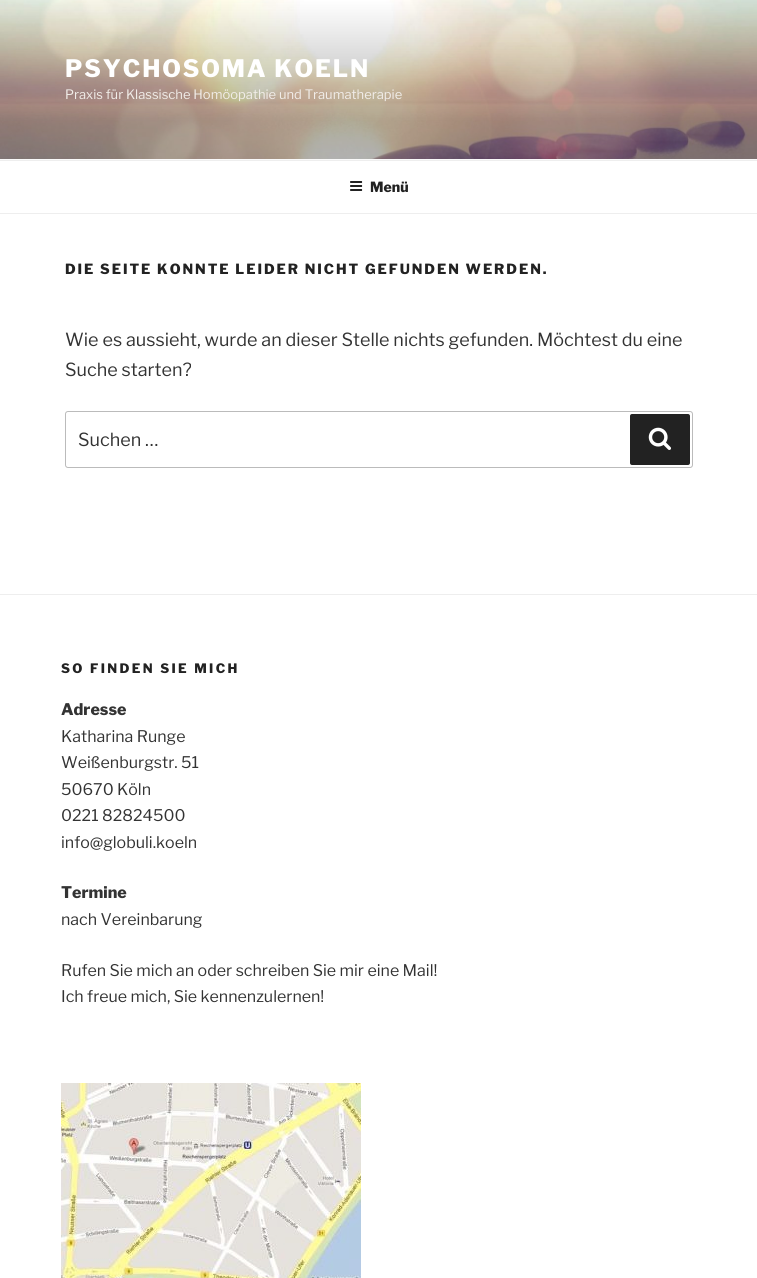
import math
import cairocffi as cairo

surface = cairo.ImageSurface(cairo.FORMAT_RGB24, 757, 1278)
cr = cairo.Context(surface)
options = cairo.FontOptions()
options.set_hint_metrics(cairo.HINT_METRICS_OFF)
options.set_hint_style(cairo.HINT_STYLE_NONE)
cr.set_font_options(options)
cr.set_miter_limit(4)


def use_color(code):
    cr.set_source_rgb(*(v / 255 for v in bytes.fromhex(code[-6:])))


def spaced_text(x, y, s, letter, word):
    cr.move_to(x, y)
    for ch in s:
        cr.show_text(ch)
        cr.rel_move_to(letter + word * (ch == ' '), 0)


def round_rect(x, y, w, h, r):
    cr.new_sub_path()
    for i, (u, v) in enumerate([(x + w - r, y + h - r), (x + r, y + h - r), (x + r, y + r), (x + w - r, y + r)]):
        cr.arc(u, v, r, i * math.pi / 2, (i + 1) * math.pi / 2)
    cr.close_path()


def picture(path, x, y, w, h):
    cr.save()
    cr.set_source_surface(cairo.ImageSurface.create_from_png(path), x, y)
    cr.rectangle(x, y, w, h)
    cr.fill()
    cr.restore()


use_color("#ffffff")
cr.paint()
use_color("#fafafa")
cr.rectangle(0, 159, 757, 1)
cr.fill()
picture("img1.png", 0, 0, 757, 159)
cr.select_font_face("Libre Franklin Thin")
cr.set_font_size(24)
use_color("#ffffff")
spaced_text(65, 77, "PSYCHOSOMA KOELN", 1.9, 0)
cr.select_font_face("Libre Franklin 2 Thin")
cr.set_font_size(13)
use_color("#f1ede9")
cr.move_to(65, 99)
cr.show_text("Praxis für Klassische Homöopathie und Traumatherapie")
use_color("#eeeeee")
cr.rectangle(0, 160, 757, 1)
cr.fill()
cr.rectangle(0, 213, 757, 1)
cr.fill()
picture("img2.png", 350, 181, 13, 10)
cr.select_font_face("Libre Franklin Thin")
cr.set_font_size(14)
use_color("#222222")
cr.move_to(370, 192)
cr.show_text("Menü")
spaced_text(65, 274, "DIE SEITE KONNTE LEIDER NICHT GEFUNDEN WERDEN.", 1.95, 0)
cr.select_font_face("Libre Franklin 2 Thin")
cr.set_font_size(18)
use_color("#333333")
cr.move_to(65, 346)
cr.show_text("Wie es aussieht, wurde an dieser Stelle nichts gefunden. Möchtest du eine")
cr.move_to(65, 376)
cr.show_text("Suche starten?")
round_rect(65.5, 411.5, 627, 56, 2.5)
use_color("#bbbbbb")
cr.set_line_width(1)
cr.stroke()
use_color("#333333")
cr.move_to(78, 446)
cr.show_text("Suchen …")
use_color("#222222")
round_rect(630, 414, 60, 51, 2)
cr.fill()
picture("img3.png", 648, 427, 23, 23)
use_color("#eeeeee")
cr.rectangle(0, 594, 757, 1)
cr.fill()
cr.select_font_face("Libre Franklin Thin")
cr.set_font_size(13)
use_color("#222222")
spaced_text(61, 673, "SO FINDEN SIE MICH", 2.4, 0)
cr.set_font_size(16)
use_color("#333333")
cr.move_to(61, 715)
cr.show_text("Adresse")
cr.select_font_face("Libre Franklin 2 Thin")
cr.move_to(61, 742)
cr.show_text("Katharina Runge")
cr.move_to(61, 768)
cr.show_text("Weißenburgstr. 51")
cr.move_to(61, 795)
cr.show_text("50670 Köln")
cr.move_to(61, 821)
cr.show_text("0221 82824500")
cr.move_to(61, 848)
cr.show_text("info@globuli.koeln")
cr.select_font_face("Libre Franklin Thin")
cr.move_to(61, 898)
cr.show_text("Termine")
cr.select_font_face("Libre Franklin 2 Thin")
cr.move_to(61, 925)
cr.show_text("nach Vereinbarung")
cr.move_to(61, 976)
cr.show_text("Rufen Sie mich an oder schreiben Sie mir eine Mail!")
cr.move_to(61, 1002)
cr.show_text("Ich freue mich, Sie kennenzulernen!")
picture("img4.png", 61, 1083, 300, 195)
surface.write_to_png("result.png")
